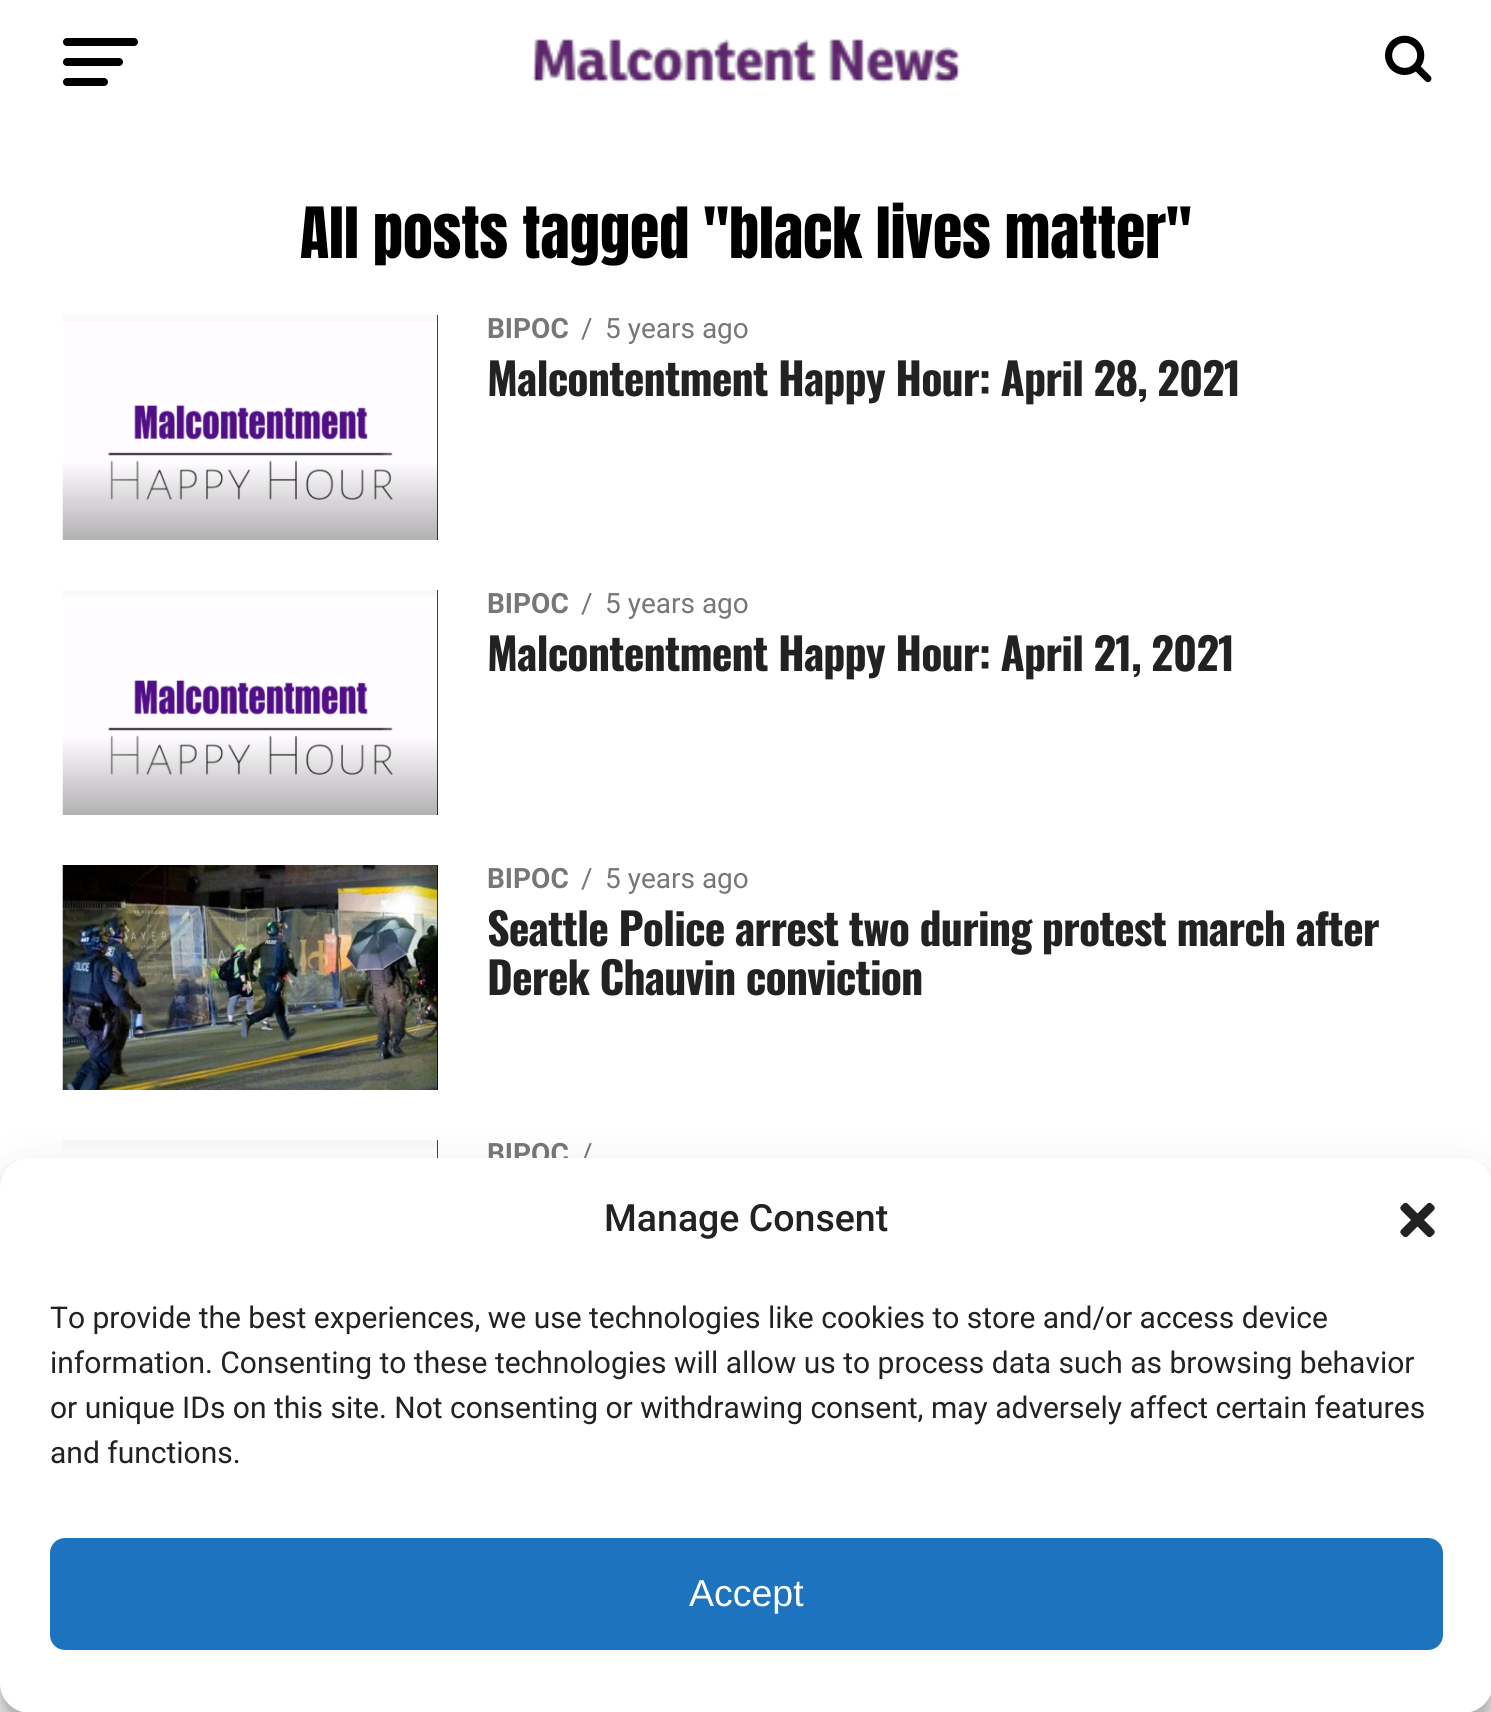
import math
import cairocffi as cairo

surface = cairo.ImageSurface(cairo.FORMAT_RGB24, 1491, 1712)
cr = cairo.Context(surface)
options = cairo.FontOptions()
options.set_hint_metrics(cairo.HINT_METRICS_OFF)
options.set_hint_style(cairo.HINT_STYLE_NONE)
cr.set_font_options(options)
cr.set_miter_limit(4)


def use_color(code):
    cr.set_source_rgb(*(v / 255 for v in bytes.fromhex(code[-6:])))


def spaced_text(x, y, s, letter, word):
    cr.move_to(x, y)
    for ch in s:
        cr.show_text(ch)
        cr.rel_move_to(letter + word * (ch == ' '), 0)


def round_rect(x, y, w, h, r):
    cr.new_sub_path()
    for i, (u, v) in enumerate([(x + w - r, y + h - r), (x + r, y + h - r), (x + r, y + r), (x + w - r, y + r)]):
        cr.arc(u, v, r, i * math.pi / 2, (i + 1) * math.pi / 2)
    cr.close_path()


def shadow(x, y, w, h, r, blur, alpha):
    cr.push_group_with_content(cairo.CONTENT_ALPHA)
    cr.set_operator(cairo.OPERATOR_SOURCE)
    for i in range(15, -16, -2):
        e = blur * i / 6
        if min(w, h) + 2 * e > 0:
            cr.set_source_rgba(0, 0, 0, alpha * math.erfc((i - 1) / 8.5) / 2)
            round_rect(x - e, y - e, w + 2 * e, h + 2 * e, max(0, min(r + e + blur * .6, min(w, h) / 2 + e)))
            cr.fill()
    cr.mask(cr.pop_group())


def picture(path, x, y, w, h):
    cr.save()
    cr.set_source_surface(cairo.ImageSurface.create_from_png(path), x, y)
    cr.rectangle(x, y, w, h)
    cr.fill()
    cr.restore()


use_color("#ffffff")
cr.paint()
use_color("#000000")
round_rect(63, 38, 75, 8, 4)
cr.fill()
round_rect(63, 58, 60, 8, 4)
cr.fill()
round_rect(63, 78, 45, 8, 4)
cr.fill()
picture("img1.png", 532, 38, 429, 46)
picture("img2.png", 1385, 35, 47, 48)
cr.select_font_face("Anton")
cr.set_font_size(60)
cr.move_to(300, 258)
cr.show_text("All posts tagged \"black lives matter\"")
cr.rectangle(437, 315, 1, 225)
cr.fill()
picture("img3.png", 62, 315, 376, 225)
cr.select_font_face("Roboto", cairo.FONT_SLANT_NORMAL, cairo.FONT_WEIGHT_BOLD)
cr.set_font_size(28)
use_color("#777777")
cr.move_to(487, 338)
cr.show_text("BIPOC")
cr.select_font_face("Roboto")
cr.move_to(581, 338)
cr.show_text("/")
cr.move_to(605, 338)
cr.show_text("5 years ago")
cr.select_font_face("Oswald", cairo.FONT_SLANT_NORMAL, cairo.FONT_WEIGHT_BOLD)
cr.set_font_size(44)
use_color("#222222")
spaced_text(487, 396, "Malcontentment Happy Hour: April 28, 2021", -0.88, 0)
use_color("#000000")
cr.rectangle(437, 590, 1, 225)
cr.fill()
picture("img3.png", 62, 590, 376, 225)
cr.select_font_face("Roboto", cairo.FONT_SLANT_NORMAL, cairo.FONT_WEIGHT_BOLD)
cr.set_font_size(28)
use_color("#777777")
cr.move_to(487, 613)
cr.show_text("BIPOC")
cr.select_font_face("Roboto")
cr.move_to(581, 613)
cr.show_text("/")
cr.move_to(605, 613)
cr.show_text("5 years ago")
cr.select_font_face("Oswald", cairo.FONT_SLANT_NORMAL, cairo.FONT_WEIGHT_BOLD)
cr.set_font_size(44)
use_color("#222222")
spaced_text(487, 671, "Malcontentment Happy Hour: April 21, 2021", -0.88, 0)
use_color("#000000")
cr.rectangle(437, 865, 1, 225)
cr.fill()
picture("img4.png", 62, 865, 376, 225)
cr.select_font_face("Roboto", cairo.FONT_SLANT_NORMAL, cairo.FONT_WEIGHT_BOLD)
cr.set_font_size(28)
use_color("#777777")
cr.move_to(487, 888)
cr.show_text("BIPOC")
cr.select_font_face("Roboto")
cr.move_to(581, 888)
cr.show_text("/")
cr.move_to(605, 888)
cr.show_text("5 years ago")
cr.select_font_face("Oswald", cairo.FONT_SLANT_NORMAL, cairo.FONT_WEIGHT_BOLD)
cr.set_font_size(44)
use_color("#222222")
spaced_text(487, 946, "Seattle Police arrest two during protest march after", -0.88, 0)
spaced_text(487, 995, "Derek Chauvin conviction", -0.88, 0)
use_color("#000000")
cr.rectangle(437, 1140, 1, 18)
cr.fill()
picture("img5.png", 62, 1140, 376, 18)
cr.select_font_face("Roboto", cairo.FONT_SLANT_NORMAL, cairo.FONT_WEIGHT_BOLD)
cr.set_font_size(28)
use_color("#777777")
cr.move_to(487, 1163)
cr.show_text("BIPOC")
cr.select_font_face("Roboto")
cr.move_to(581, 1163)
cr.show_text("/")
use_color("#000000")
shadow(0, 1173, 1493, 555, 30, 7.5, 0.23)
shadow(0, 1183, 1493, 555, 30, 25, 0.19)
use_color("#ffffff")
round_rect(0, 1158, 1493, 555, 30)
cr.fill()
cr.select_font_face("Roboto Medium")
cr.set_font_size(37.5)
use_color("#222222")
cr.move_to(604, 1231)
cr.show_text("Manage Consent")
picture("img6.png", 1400, 1202, 35, 36)
cr.select_font_face("Roboto")
cr.set_font_size(30)
cr.move_to(50, 1328)
cr.show_text("To provide the best experiences, we use technologies like cookies to store and/or access device")
cr.move_to(50, 1373)
cr.show_text("information. Consenting to these technologies will allow us to process data such as browsing behavior")
cr.move_to(50, 1418)
cr.show_text("or unique IDs on this site. Not consenting or withdrawing consent, may adversely affect certain features")
cr.move_to(50, 1463)
cr.show_text("and functions.")
use_color("#1e73be")
round_rect(51.5, 1539.5, 1390, 109, 13.5)
cr.fill_preserve()
cr.set_line_width(3)
cr.stroke()
cr.select_font_face("Liberation Sans")
cr.set_font_size(37.5)
use_color("#ffffff")
cr.move_to(689, 1606)
cr.show_text("Accept")
surface.write_to_png("result.png")
